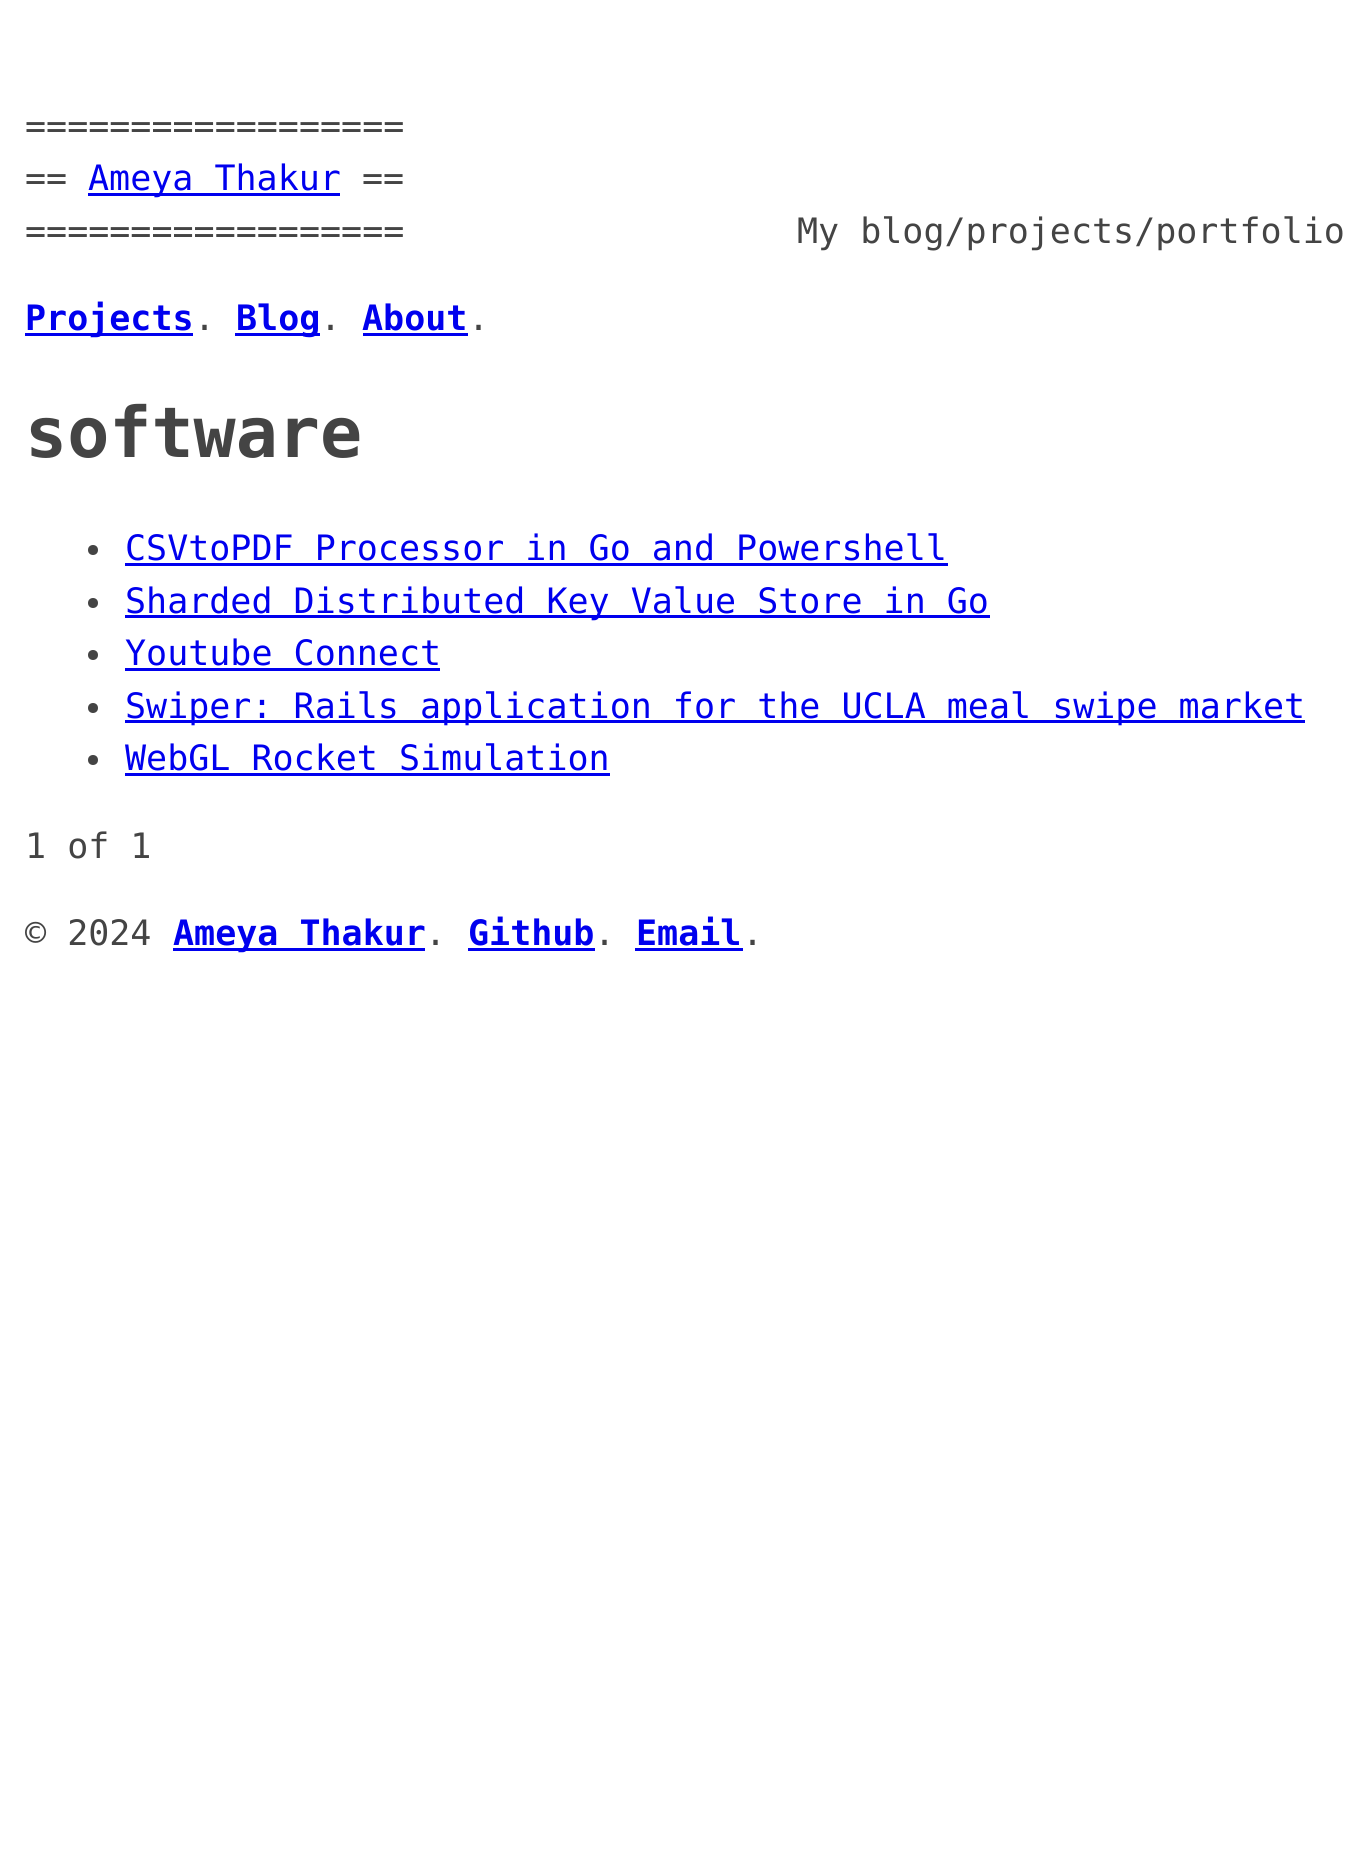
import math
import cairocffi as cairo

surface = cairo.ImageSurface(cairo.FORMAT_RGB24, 1370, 1859)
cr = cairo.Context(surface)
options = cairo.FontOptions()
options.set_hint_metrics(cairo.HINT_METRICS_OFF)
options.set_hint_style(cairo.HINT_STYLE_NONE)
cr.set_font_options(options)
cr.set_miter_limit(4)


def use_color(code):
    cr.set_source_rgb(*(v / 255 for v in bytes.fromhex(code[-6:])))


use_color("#ffffff")
cr.paint()
cr.select_font_face("DejaVu Sans Mono")
cr.set_font_size(35)
use_color("#444444")
cr.move_to(25, 138)
cr.show_text("==================")
cr.move_to(25, 190)
cr.show_text("==")
use_color("#0000ee")
cr.rectangle(88, 193, 252, 3)
cr.fill()
cr.move_to(88, 190)
cr.show_text("Ameya Thakur")
use_color("#444444")
cr.move_to(362, 190)
cr.show_text("==")
cr.move_to(25, 243)
cr.show_text("==================")
cr.move_to(797, 243)
cr.show_text("My blog/projects/portfolio")
use_color("#0000ee")
cr.rectangle(25, 333, 168, 3)
cr.fill()
cr.select_font_face("DejaVu Sans Mono", cairo.FONT_SLANT_NORMAL, cairo.FONT_WEIGHT_BOLD)
cr.move_to(25, 330)
cr.show_text("Projects")
cr.select_font_face("DejaVu Sans Mono")
use_color("#444444")
cr.move_to(194, 330)
cr.show_text(".")
use_color("#0000ee")
cr.rectangle(235, 333, 85, 3)
cr.fill()
cr.select_font_face("DejaVu Sans Mono", cairo.FONT_SLANT_NORMAL, cairo.FONT_WEIGHT_BOLD)
cr.move_to(236, 330)
cr.show_text("Blog")
cr.select_font_face("DejaVu Sans Mono")
use_color("#444444")
cr.move_to(320, 330)
cr.show_text(".")
cr.select_font_face("DejaVu Sans Mono", cairo.FONT_SLANT_NORMAL, cairo.FONT_WEIGHT_BOLD)
use_color("#0000ee")
cr.move_to(362, 330)
cr.show_text("About")
cr.rectangle(363, 333, 105, 3)
cr.fill()
cr.select_font_face("DejaVu Sans Mono")
use_color("#444444")
cr.move_to(468, 330)
cr.show_text(".")
cr.select_font_face("DejaVu Sans Mono", cairo.FONT_SLANT_NORMAL, cairo.FONT_WEIGHT_BOLD)
cr.set_font_size(70)
cr.move_to(25, 457)
cr.show_text("software")
cr.new_path()
cr.arc(93, 550, 5, 0, 2 * math.pi)
cr.fill()
cr.select_font_face("DejaVu Sans Mono")
cr.set_font_size(35)
use_color("#0000ee")
cr.move_to(125, 560)
cr.show_text("CSVtoPDF Processor in Go and Powershell")
cr.rectangle(125, 563, 823, 3)
cr.fill()
use_color("#444444")
cr.arc(93, 603, 5, 0, 2 * math.pi)
cr.fill()
use_color("#0000ee")
cr.rectangle(125, 615, 865, 3)
cr.fill()
cr.move_to(125, 613)
cr.show_text("Sharded Distributed Key Value Store in Go")
use_color("#444444")
cr.new_path()
cr.arc(93, 655, 5, 0, 2 * math.pi)
cr.fill()
use_color("#0000ee")
cr.move_to(125, 665)
cr.show_text("Youtube Connect")
cr.rectangle(125, 668, 315, 3)
cr.fill()
use_color("#444444")
cr.arc(93, 708, 5, 0, 2 * math.pi)
cr.fill()
use_color("#0000ee")
cr.rectangle(125, 720, 1180, 3)
cr.fill()
cr.move_to(125, 718)
cr.show_text("Swiper: Rails application for the UCLA meal swipe market")
use_color("#444444")
cr.new_path()
cr.arc(93, 760, 5, 0, 2 * math.pi)
cr.fill()
use_color("#0000ee")
cr.move_to(125, 770)
cr.show_text("WebGL Rocket Simulation")
cr.rectangle(125, 773, 485, 3)
cr.fill()
use_color("#444444")
cr.move_to(25, 858)
cr.show_text("1 of 1")
cr.move_to(25, 945)
cr.show_text("© 2024")
use_color("#0000ee")
cr.rectangle(173, 948, 252, 3)
cr.fill()
cr.select_font_face("DejaVu Sans Mono", cairo.FONT_SLANT_NORMAL, cairo.FONT_WEIGHT_BOLD)
cr.move_to(173, 945)
cr.show_text("Ameya Thakur")
cr.select_font_face("DejaVu Sans Mono")
use_color("#444444")
cr.move_to(425, 945)
cr.show_text(".")
cr.select_font_face("DejaVu Sans Mono", cairo.FONT_SLANT_NORMAL, cairo.FONT_WEIGHT_BOLD)
use_color("#0000ee")
cr.move_to(468, 945)
cr.show_text("Github")
cr.rectangle(468, 948, 127, 3)
cr.fill()
cr.select_font_face("DejaVu Sans Mono")
use_color("#444444")
cr.move_to(594, 945)
cr.show_text(".")
cr.select_font_face("DejaVu Sans Mono", cairo.FONT_SLANT_NORMAL, cairo.FONT_WEIGHT_BOLD)
use_color("#0000ee")
cr.move_to(636, 945)
cr.show_text("Email")
cr.rectangle(635, 948, 108, 3)
cr.fill()
cr.select_font_face("DejaVu Sans Mono")
use_color("#444444")
cr.move_to(742, 945)
cr.show_text(".")
surface.write_to_png("result.png")
